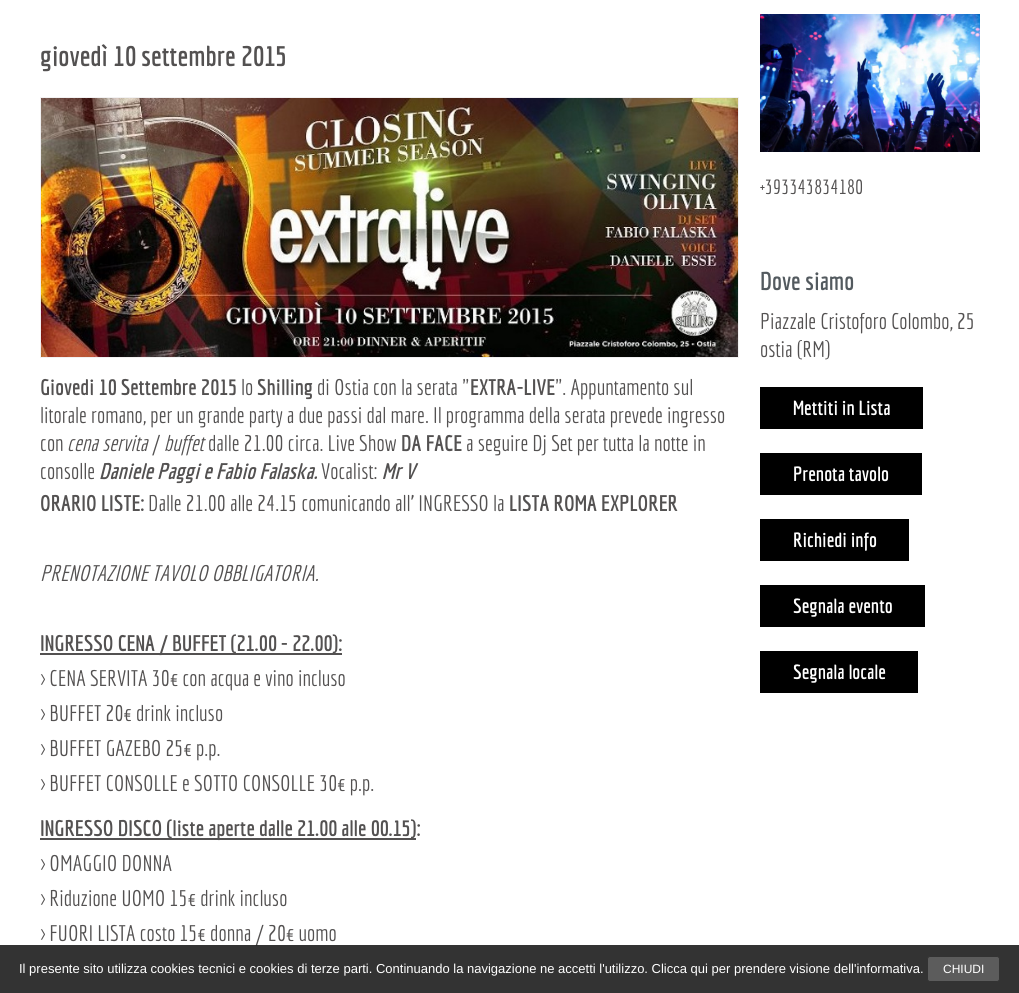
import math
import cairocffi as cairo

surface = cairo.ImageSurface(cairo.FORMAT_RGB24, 1019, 993)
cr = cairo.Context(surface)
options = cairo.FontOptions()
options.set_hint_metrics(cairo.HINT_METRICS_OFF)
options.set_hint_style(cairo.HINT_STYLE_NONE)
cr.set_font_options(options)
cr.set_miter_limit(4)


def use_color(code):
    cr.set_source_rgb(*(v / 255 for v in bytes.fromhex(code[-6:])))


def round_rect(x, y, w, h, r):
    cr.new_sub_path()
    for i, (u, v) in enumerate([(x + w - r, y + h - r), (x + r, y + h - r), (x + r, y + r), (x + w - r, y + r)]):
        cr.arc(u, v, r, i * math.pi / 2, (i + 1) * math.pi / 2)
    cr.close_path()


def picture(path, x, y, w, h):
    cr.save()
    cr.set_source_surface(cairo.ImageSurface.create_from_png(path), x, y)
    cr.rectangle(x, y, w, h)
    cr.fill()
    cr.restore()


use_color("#ffffff")
cr.paint()
cr.select_font_face("Economica", cairo.FONT_SLANT_NORMAL, cairo.FONT_WEIGHT_BOLD)
cr.set_font_size(28)
use_color("#535151")
cr.move_to(40, 66)
cr.show_text("giovedì 10 settembre 2015")
cr.rectangle(40.5, 97.5, 698, 260)
use_color("#f2f1f2")
cr.set_line_width(1)
cr.stroke()
picture("img1.png", 41, 98, 697, 259)
cr.set_font_size(22)
use_color("#535151")
cr.move_to(40, 395)
cr.show_text("Giovedi 10 Settembre 2015")
cr.select_font_face("Economica")
cr.move_to(241, 395)
cr.show_text("lo")
cr.select_font_face("Economica", cairo.FONT_SLANT_NORMAL, cairo.FONT_WEIGHT_BOLD)
cr.move_to(257, 395)
cr.show_text("Shilling")
cr.select_font_face("Economica")
cr.move_to(317, 395)
cr.show_text("di Ostia con la serata \"")
cr.select_font_face("Economica", cairo.FONT_SLANT_NORMAL, cairo.FONT_WEIGHT_BOLD)
cr.move_to(470, 395)
cr.show_text("EXTRA-LIVE")
cr.select_font_face("Economica")
cr.move_to(555, 395)
cr.show_text("\". Appuntamento sul")
cr.move_to(40, 423)
cr.show_text("litorale romano, per un grande party a due passi dal mare. Il programma della serata prevede ingresso")
cr.move_to(40, 451)
cr.show_text("con")
cr.select_font_face("Economica", cairo.FONT_SLANT_ITALIC)
cr.move_to(67, 451)
cr.show_text("cena servita")
cr.select_font_face("Economica")
cr.move_to(152, 451)
cr.show_text("/")
cr.select_font_face("Economica", cairo.FONT_SLANT_ITALIC)
cr.move_to(164, 451)
cr.show_text("buffet")
cr.select_font_face("Economica")
cr.move_to(208, 451)
cr.show_text("dalle 21.00 circa. Live Show")
cr.select_font_face("Economica", cairo.FONT_SLANT_NORMAL, cairo.FONT_WEIGHT_BOLD)
cr.move_to(401, 451)
cr.show_text("DA FACE")
cr.select_font_face("Economica")
cr.move_to(466, 451)
cr.show_text("a seguire Dj Set per tutta la notte in")
cr.move_to(40, 479)
cr.show_text("consolle")
cr.select_font_face("Economica", cairo.FONT_SLANT_ITALIC, cairo.FONT_WEIGHT_BOLD)
cr.move_to(99, 479)
cr.show_text("Daniele Paggi e Fabio Falaska.")
cr.select_font_face("Economica")
cr.move_to(321, 479)
cr.show_text("Vocalist:")
cr.select_font_face("Economica", cairo.FONT_SLANT_ITALIC, cairo.FONT_WEIGHT_BOLD)
cr.move_to(382, 479)
cr.show_text("Mr V")
cr.select_font_face("Economica", cairo.FONT_SLANT_NORMAL, cairo.FONT_WEIGHT_BOLD)
cr.move_to(40, 511)
cr.show_text("ORARIO LISTE:")
cr.select_font_face("Economica")
cr.move_to(148, 511)
cr.show_text("Dalle 21.00 alle 24.15 comunicando all' INGRESSO la")
cr.select_font_face("Economica", cairo.FONT_SLANT_NORMAL, cairo.FONT_WEIGHT_BOLD)
cr.move_to(509, 511)
cr.show_text("LISTA ROMA EXPLORER")
cr.select_font_face("Economica", cairo.FONT_SLANT_ITALIC)
cr.move_to(40, 581)
cr.show_text("PRENOTAZIONE TAVOLO OBBLIGATORIA.")
cr.rectangle(40, 653, 302, 2)
cr.fill()
cr.select_font_face("Economica", cairo.FONT_SLANT_NORMAL, cairo.FONT_WEIGHT_BOLD)
cr.move_to(40, 651)
cr.show_text("INGRESSO CENA / BUFFET (21.00 - 22.00):")
cr.select_font_face("Economica")
cr.move_to(40, 686)
cr.show_text("> CENA SERVITA 30€ con acqua e vino incluso")
cr.move_to(40, 721)
cr.show_text("> BUFFET 20€ drink incluso")
cr.move_to(40, 756)
cr.show_text("> BUFFET GAZEBO 25€ p.p.")
cr.move_to(40, 791)
cr.show_text("> BUFFET CONSOLLE e SOTTO CONSOLLE 30€ p.p.")
cr.rectangle(40, 838, 376, 2)
cr.fill()
cr.select_font_face("Economica", cairo.FONT_SLANT_NORMAL, cairo.FONT_WEIGHT_BOLD)
cr.move_to(40, 836)
cr.show_text("INGRESSO DISCO (liste aperte dalle 21.00 alle 00.15):")
cr.select_font_face("Economica")
cr.move_to(40, 871)
cr.show_text("> OMAGGIO DONNA")
cr.move_to(40, 906)
cr.show_text("> Riduzione UOMO 15€ drink incluso")
cr.move_to(40, 941)
cr.show_text("> FUORI LISTA costo 15€ donna / 20€ uomo")
picture("img2.png", 760, 14, 220, 138)
cr.set_font_size(20)
cr.move_to(760, 194)
cr.show_text("+393343834180")
cr.select_font_face("Economica", cairo.FONT_SLANT_NORMAL, cairo.FONT_WEIGHT_BOLD)
cr.set_font_size(25)
use_color("#535a5f")
cr.move_to(760, 290)
cr.show_text("Dove siamo")
cr.select_font_face("Economica")
cr.set_font_size(22)
use_color("#535151")
cr.move_to(760, 329)
cr.show_text("Piazzale Cristoforo Colombo, 25")
cr.move_to(760, 357)
cr.show_text("ostia (RM)")
use_color("#000000")
cr.rectangle(760, 387, 163, 42)
cr.fill()
cr.select_font_face("Economica", cairo.FONT_SLANT_NORMAL, cairo.FONT_WEIGHT_BOLD)
cr.set_font_size(20)
use_color("#ffffff")
cr.move_to(793, 415)
cr.show_text("Mettiti in Lista")
use_color("#000000")
cr.rectangle(760, 453, 162, 42)
cr.fill()
use_color("#ffffff")
cr.move_to(793, 481)
cr.show_text("Prenota tavolo")
use_color("#000000")
cr.rectangle(760, 519, 149, 42)
cr.fill()
use_color("#ffffff")
cr.move_to(793, 547)
cr.show_text("Richiedi info")
use_color("#000000")
cr.rectangle(760, 585, 165, 42)
cr.fill()
use_color("#ffffff")
cr.move_to(793, 613)
cr.show_text("Segnala evento")
use_color("#000000")
cr.rectangle(760, 651, 158, 42)
cr.fill()
use_color("#ffffff")
cr.move_to(793, 679)
cr.show_text("Segnala locale")
cr.set_source_rgba(0, 0, 0, 0.8)
cr.rectangle(0, 945, 1019, 48)
cr.fill()
cr.select_font_face("Liberation Sans")
cr.set_font_size(13)
use_color("#ffffff")
cr.move_to(19, 973)
cr.show_text("Il presente sito utilizza cookies tecnici e cookies di terze parti. Continuando la navigazione ne accetti l'utilizzo. Clicca qui per prendere visione dell'informativa.")
use_color("#5c5c5c")
round_rect(927.5, 956.5, 72, 25, 2.5)
cr.fill_preserve()
use_color("#333333")
cr.stroke()
cr.set_font_size(12)
use_color("#ffffff")
cr.move_to(943, 973)
cr.show_text("CHIUDI")
surface.write_to_png("result.png")
